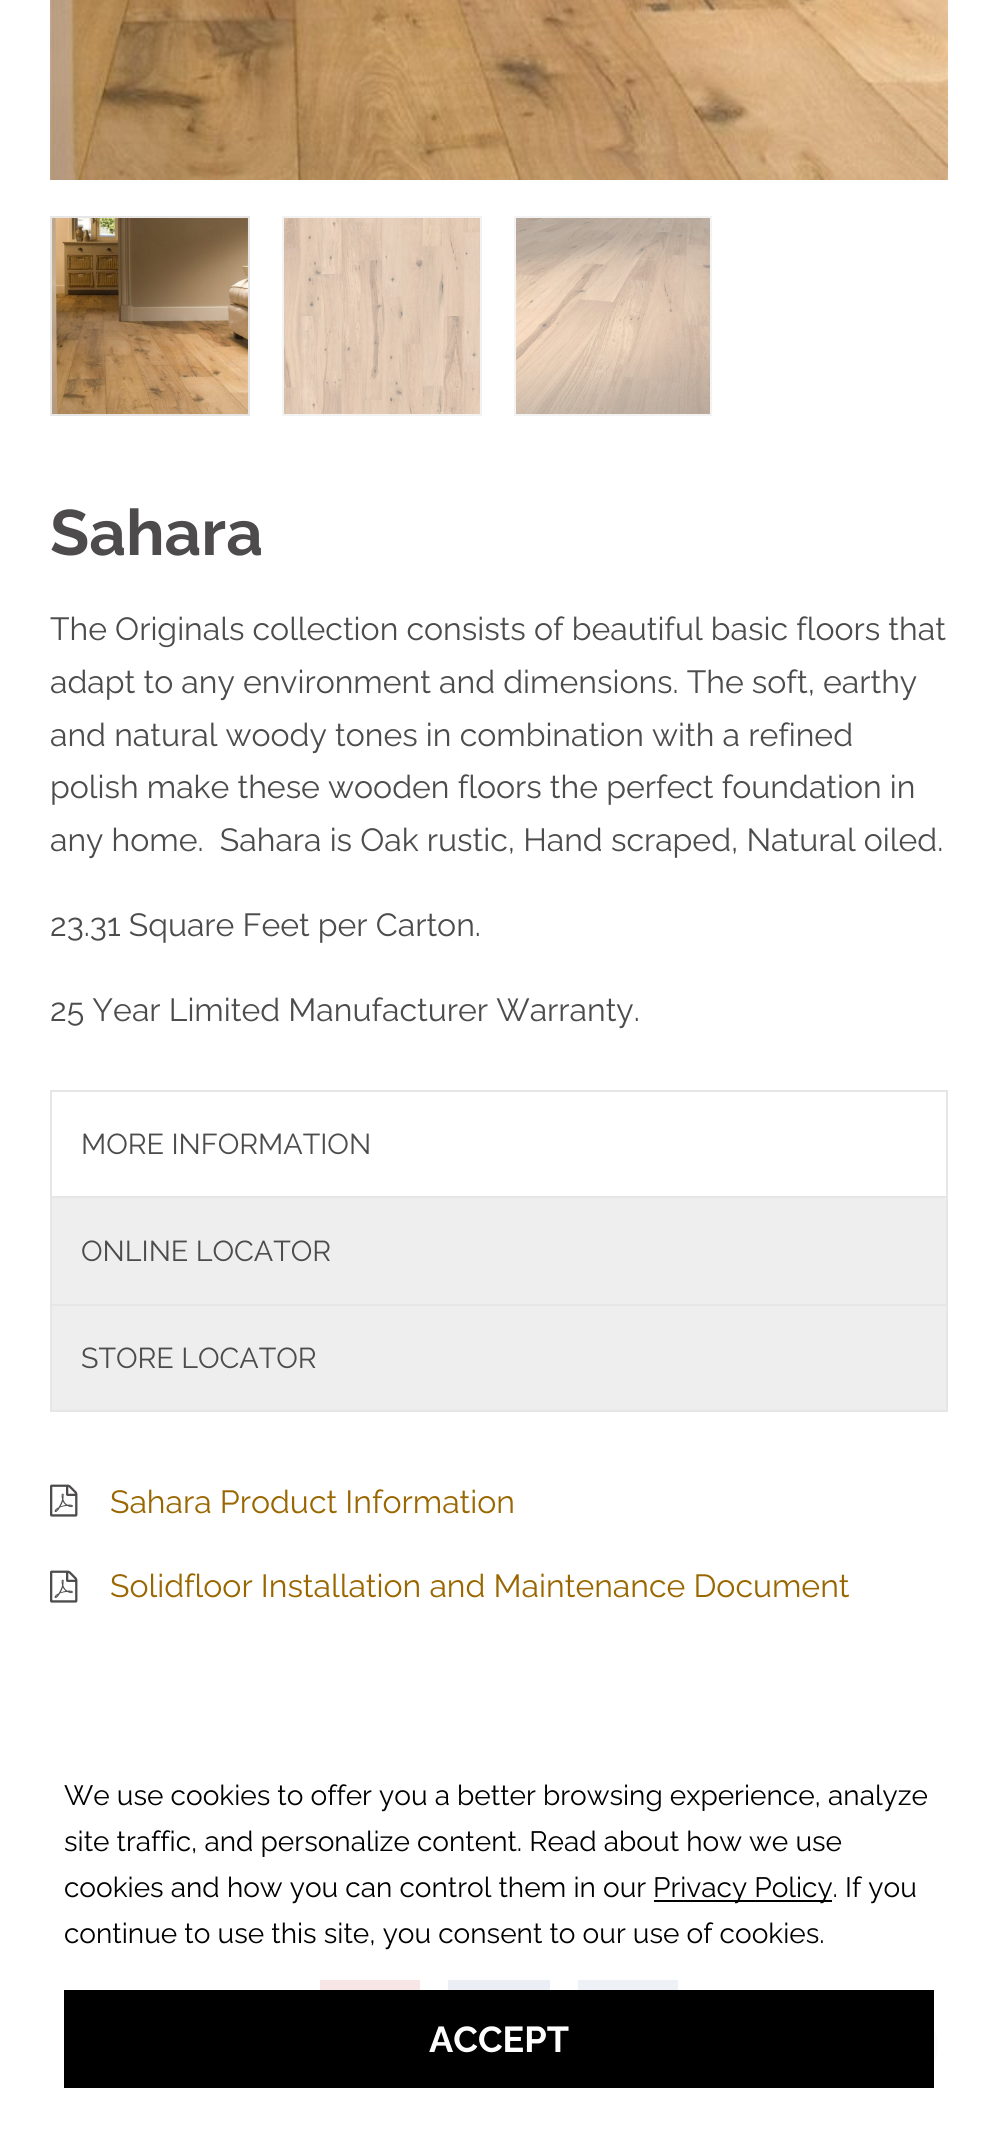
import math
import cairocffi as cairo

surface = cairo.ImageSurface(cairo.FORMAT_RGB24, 998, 2151)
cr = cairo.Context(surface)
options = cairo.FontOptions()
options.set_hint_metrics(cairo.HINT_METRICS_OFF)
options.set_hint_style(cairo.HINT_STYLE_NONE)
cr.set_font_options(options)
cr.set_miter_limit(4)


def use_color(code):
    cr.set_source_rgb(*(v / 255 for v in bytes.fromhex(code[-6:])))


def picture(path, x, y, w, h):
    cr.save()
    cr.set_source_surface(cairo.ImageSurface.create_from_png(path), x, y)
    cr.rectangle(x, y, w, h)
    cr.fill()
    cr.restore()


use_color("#ffffff")
cr.paint()
picture("img1.png", 50, 0, 898, 180)
cr.rectangle(51, 217, 198, 198)
use_color("#e6e6e6")
cr.stroke()
picture("img2.png", 52, 218, 196, 196)
cr.rectangle(283, 217, 198, 198)
use_color("#f3f3f3")
cr.stroke()
picture("img3.png", 284, 218, 196, 196)
cr.rectangle(515, 217, 196, 198)
cr.stroke()
picture("img4.png", 516, 218, 194, 196)
cr.select_font_face("Raleway", cairo.FONT_SLANT_NORMAL, cairo.FONT_WEIGHT_BOLD)
cr.set_font_size(64)
use_color("#4d4b4b")
cr.move_to(50, 555)
cr.show_text("Sahara")
cr.select_font_face("Raleway")
cr.set_font_size(32)
cr.move_to(50, 640)
cr.show_text("The Originals collection consists of beautiful basic floors that")
cr.move_to(50, 693)
cr.show_text("adapt to any environment and dimensions. The soft, earthy")
cr.move_to(50, 746)
cr.show_text("and natural woody tones in combination with a refined")
cr.move_to(50, 798)
cr.show_text("polish make these wooden floors the perfect foundation in")
cr.move_to(50, 851)
cr.show_text("any home.  Sahara is Oak rustic, Hand scraped, Natural oiled.")
cr.move_to(50, 936)
cr.show_text("23.31 Square Feet per Carton.")
cr.move_to(50, 1021)
cr.show_text("25 Year Limited Manufacturer Warranty.")
cr.rectangle(51, 1197, 896, 108)
use_color("#e6e6e6")
cr.stroke()
cr.rectangle(51, 1091, 896, 106)
cr.stroke()
cr.set_font_size(28.75)
use_color("#4d4b4b")
cr.move_to(81, 1154)
cr.show_text("MORE INFORMATION")
use_color("#eeeeee")
cr.rectangle(52, 1198, 894, 106)
cr.fill()
use_color("#4d4b4b")
cr.move_to(81, 1261)
cr.show_text("ONLINE LOCATOR")
cr.rectangle(51, 1305, 896, 106)
use_color("#e6e6e6")
cr.stroke()
use_color("#eeeeee")
cr.rectangle(52, 1306, 894, 104)
cr.fill()
use_color("#4d4b4b")
cr.move_to(81, 1368)
cr.show_text("STORE LOCATOR")
picture("img5.png", 50, 1484, 28, 33)
cr.set_font_size(32)
use_color("#996600")
cr.move_to(110, 1513)
cr.show_text("Sahara Product Information")
picture("img5.png", 50, 1570, 28, 33)
cr.move_to(110, 1597)
cr.show_text("Solidfloor Installation and Maintenance Document")
use_color("#f8e6e6")
cr.rectangle(320, 1980, 100, 10)
cr.fill()
use_color("#ebeef5")
cr.rectangle(448, 1980, 102, 10)
cr.fill()
use_color("#eef2f6")
cr.rectangle(578, 1980, 100, 10)
cr.fill()
use_color("#fafafa")
cr.arc(898, 2046, 40, 0, 2 * math.pi)
cr.fill()
cr.set_font_size(28)
use_color("#000000")
cr.move_to(64, 1805)
cr.show_text("We use cookies to offer you a better browsing experience, analyze")
cr.move_to(64, 1851)
cr.show_text("site traffic, and personalize content. Read about how we use")
cr.move_to(64, 1897)
cr.show_text("cookies and how you can control them in our")
cr.rectangle(654, 1900, 178, 2)
cr.fill()
cr.move_to(653, 1897)
cr.show_text("Privacy Policy. If you")
cr.move_to(64, 1943)
cr.show_text("continue to use this site, you consent to our use of cookies.")
cr.rectangle(64, 1990, 870, 98)
cr.fill()
cr.select_font_face("Raleway", cairo.FONT_SLANT_NORMAL, cairo.FONT_WEIGHT_BOLD)
cr.set_font_size(36)
use_color("#ffffff")
cr.move_to(429, 2052)
cr.show_text("ACCEPT")
surface.write_to_png("result.png")
